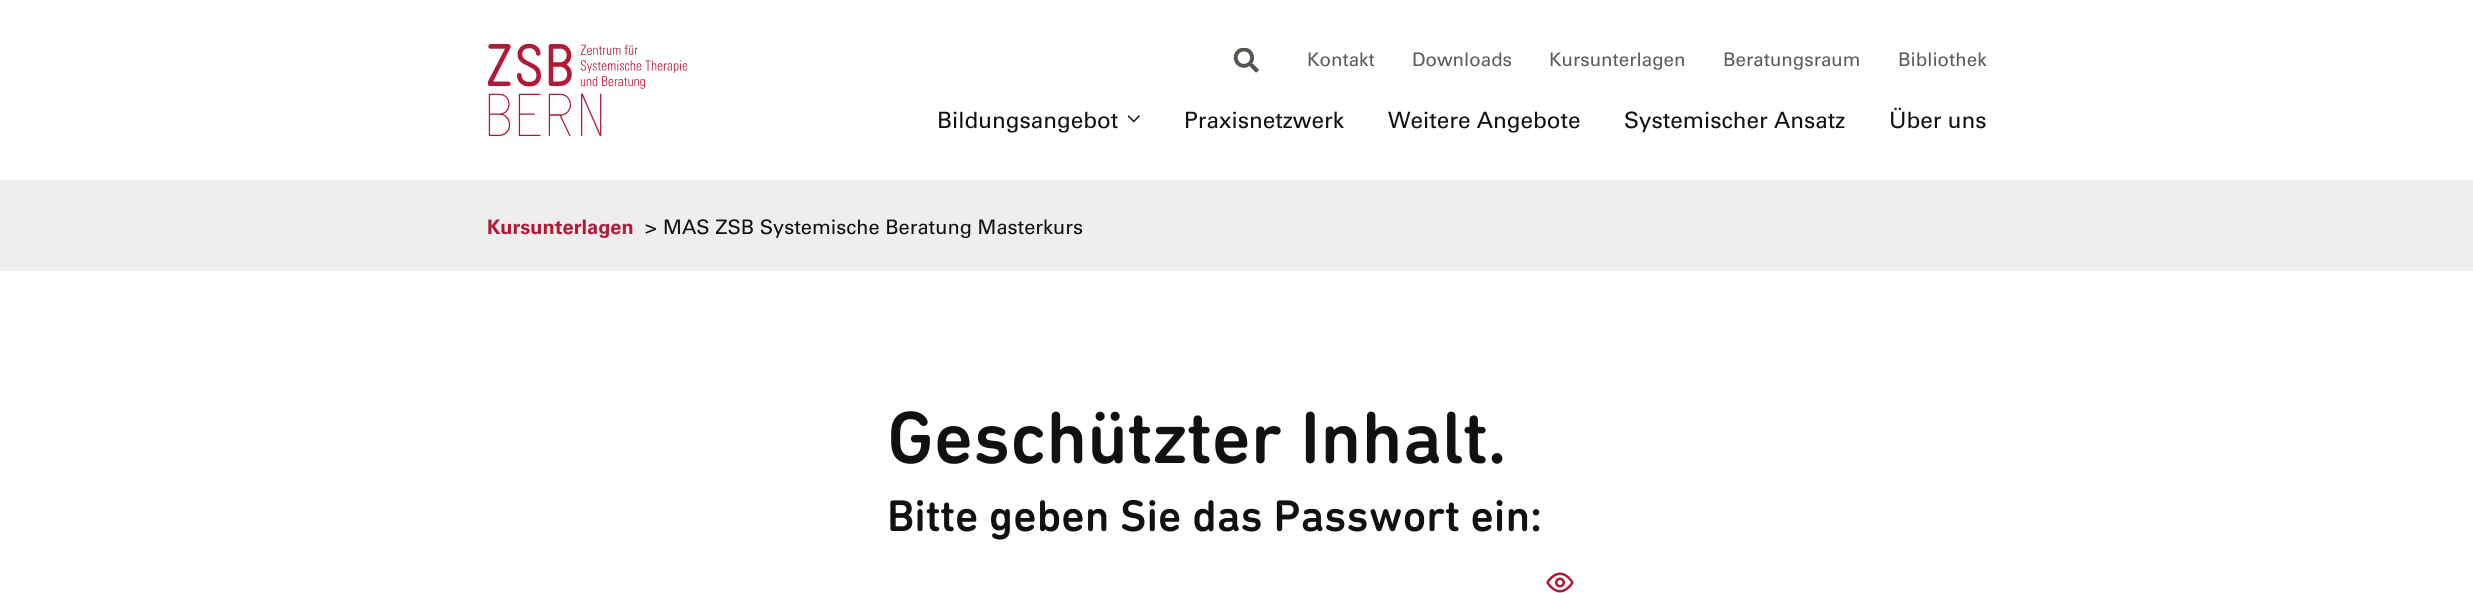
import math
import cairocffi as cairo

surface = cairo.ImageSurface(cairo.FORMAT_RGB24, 2473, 593)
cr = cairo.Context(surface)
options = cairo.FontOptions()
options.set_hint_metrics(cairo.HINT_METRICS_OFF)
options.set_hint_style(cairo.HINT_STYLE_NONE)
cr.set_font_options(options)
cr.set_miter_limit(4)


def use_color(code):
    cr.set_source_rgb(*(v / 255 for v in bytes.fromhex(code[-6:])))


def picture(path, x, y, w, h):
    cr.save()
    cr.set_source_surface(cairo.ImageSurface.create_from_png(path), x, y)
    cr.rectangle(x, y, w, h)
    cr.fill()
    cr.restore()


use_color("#ffffff")
cr.paint()
picture("img1.png", 488, 44, 200, 92)
picture("img2.png", 1233, 48, 26, 25)
cr.select_font_face("Univers")
cr.set_font_size(18.75)
use_color("#5d5b5a")
cr.move_to(1307, 66)
cr.show_text("Kontakt")
cr.move_to(1412, 66)
cr.show_text("Downloads")
cr.move_to(1549, 66)
cr.show_text("Kursunterlagen")
cr.move_to(1723, 66)
cr.show_text("Beratungsraum")
cr.move_to(1898, 66)
cr.show_text("Bibliothek")
cr.set_font_size(22.5)
use_color("#111111")
cr.move_to(937, 128)
cr.show_text("Bildungsangebot")
picture("img3.png", 1128, 115, 12, 8)
cr.move_to(1184, 128)
cr.show_text("Praxisnetzwerk")
cr.move_to(1388, 128)
cr.show_text("Weitere Angebote")
cr.move_to(1624, 128)
cr.show_text("Systemischer Ansatz")
cr.move_to(1889, 128)
cr.show_text("Über uns")
use_color("#eeeeee")
cr.rectangle(0, 180, 2473, 91)
cr.fill()
cr.select_font_face("Univers", cairo.FONT_SLANT_NORMAL, cairo.FONT_WEIGHT_BOLD)
cr.set_font_size(20)
use_color("#b01a37")
cr.move_to(487, 234)
cr.show_text("Kursunterlagen")
cr.select_font_face("Univers")
use_color("#111111")
cr.move_to(645, 234)
cr.show_text(">")
cr.move_to(663, 234)
cr.show_text("MAS ZSB Systemische Beratung Masterkurs")
cr.select_font_face("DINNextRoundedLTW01 Medium")
cr.set_font_size(75)
cr.move_to(887, 463)
cr.show_text("Geschützter Inhalt.")
cr.set_font_size(45)
cr.move_to(887, 531)
cr.show_text("Bitte geben Sie das Passwort ein:")
picture("img4.png", 1546, 572, 28, 21)
surface.write_to_png("result.png")
